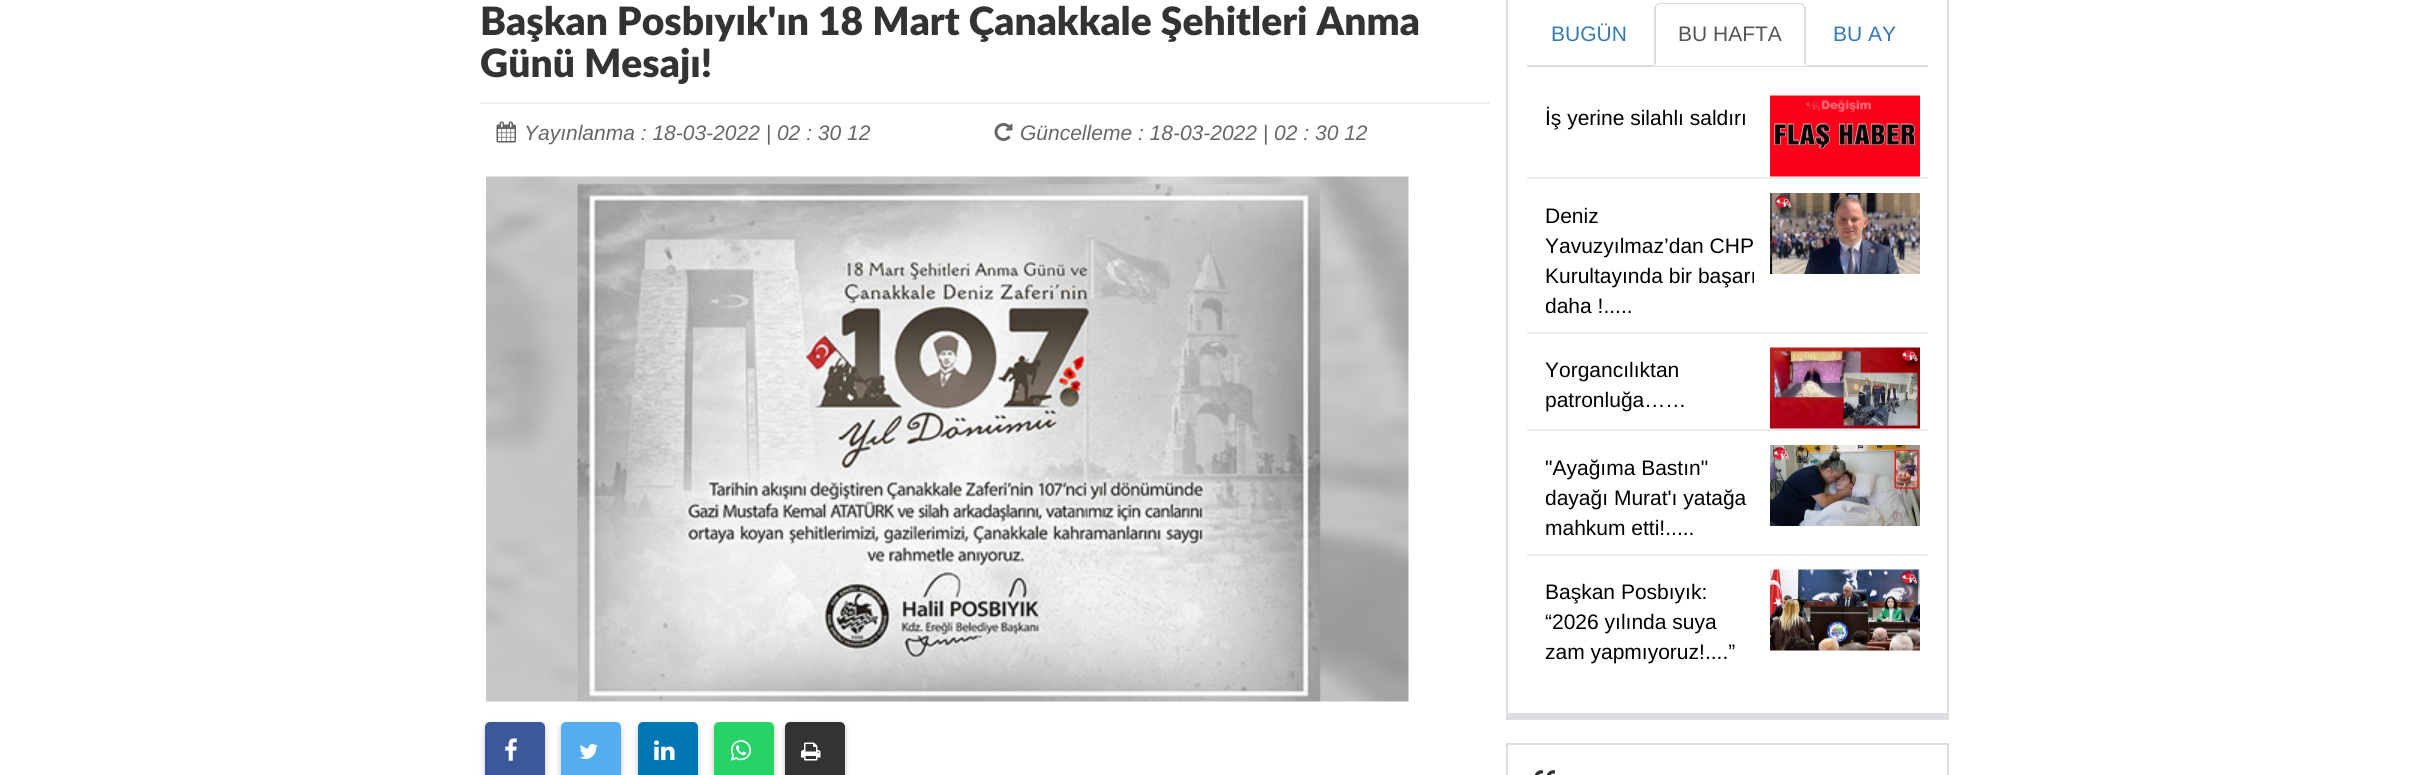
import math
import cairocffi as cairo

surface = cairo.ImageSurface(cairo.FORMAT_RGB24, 2415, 775)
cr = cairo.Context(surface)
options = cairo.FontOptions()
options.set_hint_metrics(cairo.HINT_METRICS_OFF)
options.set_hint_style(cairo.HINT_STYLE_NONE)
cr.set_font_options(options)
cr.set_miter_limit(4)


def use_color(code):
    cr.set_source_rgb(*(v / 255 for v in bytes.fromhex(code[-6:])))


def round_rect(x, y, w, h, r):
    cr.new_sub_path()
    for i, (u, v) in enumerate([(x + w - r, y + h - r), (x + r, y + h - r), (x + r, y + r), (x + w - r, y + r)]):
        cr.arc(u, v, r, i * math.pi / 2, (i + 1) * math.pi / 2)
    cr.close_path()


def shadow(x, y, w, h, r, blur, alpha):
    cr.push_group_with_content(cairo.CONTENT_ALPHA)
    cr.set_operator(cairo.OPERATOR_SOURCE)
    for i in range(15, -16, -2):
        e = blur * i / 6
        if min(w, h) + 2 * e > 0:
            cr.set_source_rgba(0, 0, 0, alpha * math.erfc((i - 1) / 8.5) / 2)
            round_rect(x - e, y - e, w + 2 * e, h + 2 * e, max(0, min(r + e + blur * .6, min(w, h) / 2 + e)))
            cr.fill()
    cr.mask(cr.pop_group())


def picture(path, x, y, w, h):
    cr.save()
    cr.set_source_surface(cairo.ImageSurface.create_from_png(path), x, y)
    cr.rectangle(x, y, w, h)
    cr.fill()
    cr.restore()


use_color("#ffffff")
cr.paint()
use_color("#eeeeee")
cr.rectangle(480, 102, 1010, 2)
cr.fill()
cr.select_font_face("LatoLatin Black")
cr.set_font_size(39)
use_color("#333333")
cr.move_to(480, 35)
cr.show_text("Başkan Posbıyık'ın 18 Mart Çanakkale Şehitleri Anma")
cr.move_to(480, 77)
cr.show_text("Günü Mesajı!")
picture("img1.png", 496, 121, 20, 22)
cr.select_font_face("Liberation Sans", cairo.FONT_SLANT_ITALIC)
cr.set_font_size(21)
use_color("#666666")
cr.move_to(524, 140)
cr.show_text("Yayınlanma : 18-03-2022 | 02 : 30 12")
picture("img2.png", 994, 123, 19, 18)
cr.move_to(1020, 140)
cr.show_text("Güncelleme : 18-03-2022 | 02 : 30 12")
picture("img3.png", 486, 176, 923, 526)
use_color("#323232")
shadow(485, 725, 60, 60, 5, 3, 0.3)
use_color("#3b5999")
round_rect(485, 722, 60, 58, 5)
cr.fill()
picture("img4.png", 505, 738, 12, 23)
use_color("#323232")
shadow(561, 725, 60, 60, 5, 3, 0.3)
use_color("#55acee")
round_rect(561, 722, 60, 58, 5)
cr.fill()
picture("img5.png", 579, 744, 19, 15)
use_color("#323232")
shadow(638, 725, 60, 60, 5, 3, 0.3)
use_color("#0077b5")
round_rect(638, 722, 60, 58, 5)
cr.fill()
picture("img6.png", 654, 740, 21, 21)
use_color("#323232")
shadow(714, 725, 60, 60, 5, 3, 0.3)
use_color("#25d366")
round_rect(714, 722, 60, 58, 5)
cr.fill()
picture("img7.png", 730, 740, 22, 21)
use_color("#323232")
shadow(785, 725, 60, 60, 5, 3, 0.3)
use_color("#333333")
round_rect(785, 722, 60, 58, 5)
cr.fill()
picture("img8.png", 801, 742, 20, 19)
use_color("#dedde1")
cr.rectangle(1947, 0, 2, 720)
cr.fill()
cr.rectangle(1506, 713, 443, 7)
cr.fill()
cr.rectangle(1506, 0, 2, 720)
cr.fill()
use_color("#dddddd")
cr.rectangle(1527, 65, 401, 2)
cr.fill()
cr.select_font_face("Liberation Sans")
use_color("#337ab7")
cr.move_to(1551, 41)
cr.show_text("BUGÜN")
use_color("#ffffff")
cr.new_path()
cr.move_to(1661, 3)
cr.line_to(1800, 3)
cr.curve_to(1803.5, 3, 1806, 5.5, 1806, 9)
cr.line_to(1806, 66)
cr.line_to(1655, 66)
cr.line_to(1655, 9)
cr.curve_to(1655, 5.5, 1657.5, 3, 1661, 3)
cr.close_path()
cr.fill()
use_color("#dddddd")
cr.new_path()
cr.move_to(1660, 3)
cr.curve_to(1659, 3, 1657, 4, 1656, 5)
cr.line_to(1657, 6)
cr.line_to(1660, 4)
cr.line_to(1800, 4)
cr.curve_to(1801, 4, 1802, 5, 1803, 6)
cr.line_to(1804, 5)
cr.curve_to(1803, 4, 1802, 3, 1800, 3)
cr.close_path()
cr.fill()
cr.new_path()
cr.move_to(1806, 66)
cr.line_to(1806, 9)
cr.curve_to(1806, 8, 1805, 6, 1804, 5)
cr.line_to(1803, 6)
cr.line_to(1804, 9)
cr.line_to(1804, 64)
cr.close_path()
cr.fill()
cr.new_path()
cr.move_to(1654, 66)
cr.line_to(1654, 7)
cr.line_to(1656, 5)
cr.line_to(1657, 6)
cr.curve_to(1656, 7, 1656, 8, 1656, 9)
cr.line_to(1656, 64)
cr.close_path()
cr.fill()
use_color("#555555")
cr.move_to(1678, 41)
cr.show_text("BU HAFTA")
use_color("#337ab7")
cr.move_to(1833, 41)
cr.show_text("BU AY")
use_color("#ececec")
cr.rectangle(1527, 177, 401, 2)
cr.fill()
use_color("#000000")
cr.move_to(1545, 125)
cr.show_text("İş yerine silahlı saldırı")
picture("img9.png", 1770, 95, 150, 82)
use_color("#ececec")
cr.rectangle(1527, 332, 401, 2)
cr.fill()
use_color("#000000")
cr.move_to(1545, 223)
cr.show_text("Deniz")
cr.move_to(1545, 253)
cr.show_text("Yavuzyılmaz’dan CHP")
cr.move_to(1545, 283)
cr.show_text("Kurultayında bir başarı")
cr.move_to(1545, 313)
cr.show_text("daha !.....")
picture("img10.png", 1770, 193, 150, 81)
use_color("#ececec")
cr.rectangle(1527, 429, 401, 2)
cr.fill()
use_color("#000000")
cr.move_to(1545, 377)
cr.show_text("Yorgancılıktan")
cr.move_to(1545, 407)
cr.show_text("patronluğa……")
picture("img11.png", 1770, 347, 150, 82)
use_color("#ececec")
cr.rectangle(1527, 554, 401, 2)
cr.fill()
use_color("#000000")
cr.move_to(1545, 475)
cr.show_text("\"Ayağıma Bastın\"")
cr.move_to(1545, 505)
cr.show_text("dayağı Murat'ı yatağa")
cr.move_to(1545, 535)
cr.show_text("mahkum etti!.....")
picture("img12.png", 1770, 445, 150, 81)
cr.move_to(1545, 599)
cr.show_text("Başkan Posbıyık:")
cr.move_to(1545, 629)
cr.show_text("“2026 yılında suya")
cr.move_to(1545, 659)
cr.show_text("zam yapmıyoruz!....”")
picture("img13.png", 1770, 569, 150, 82)
use_color("#dedde1")
cr.rectangle(1506, 743, 443, 2)
cr.fill()
cr.rectangle(1947, 743, 2, 32)
cr.fill()
cr.rectangle(1506, 743, 2, 32)
cr.fill()
picture("img14.png", 1534, 770, 22, 5)
surface.write_to_png("result.png")
